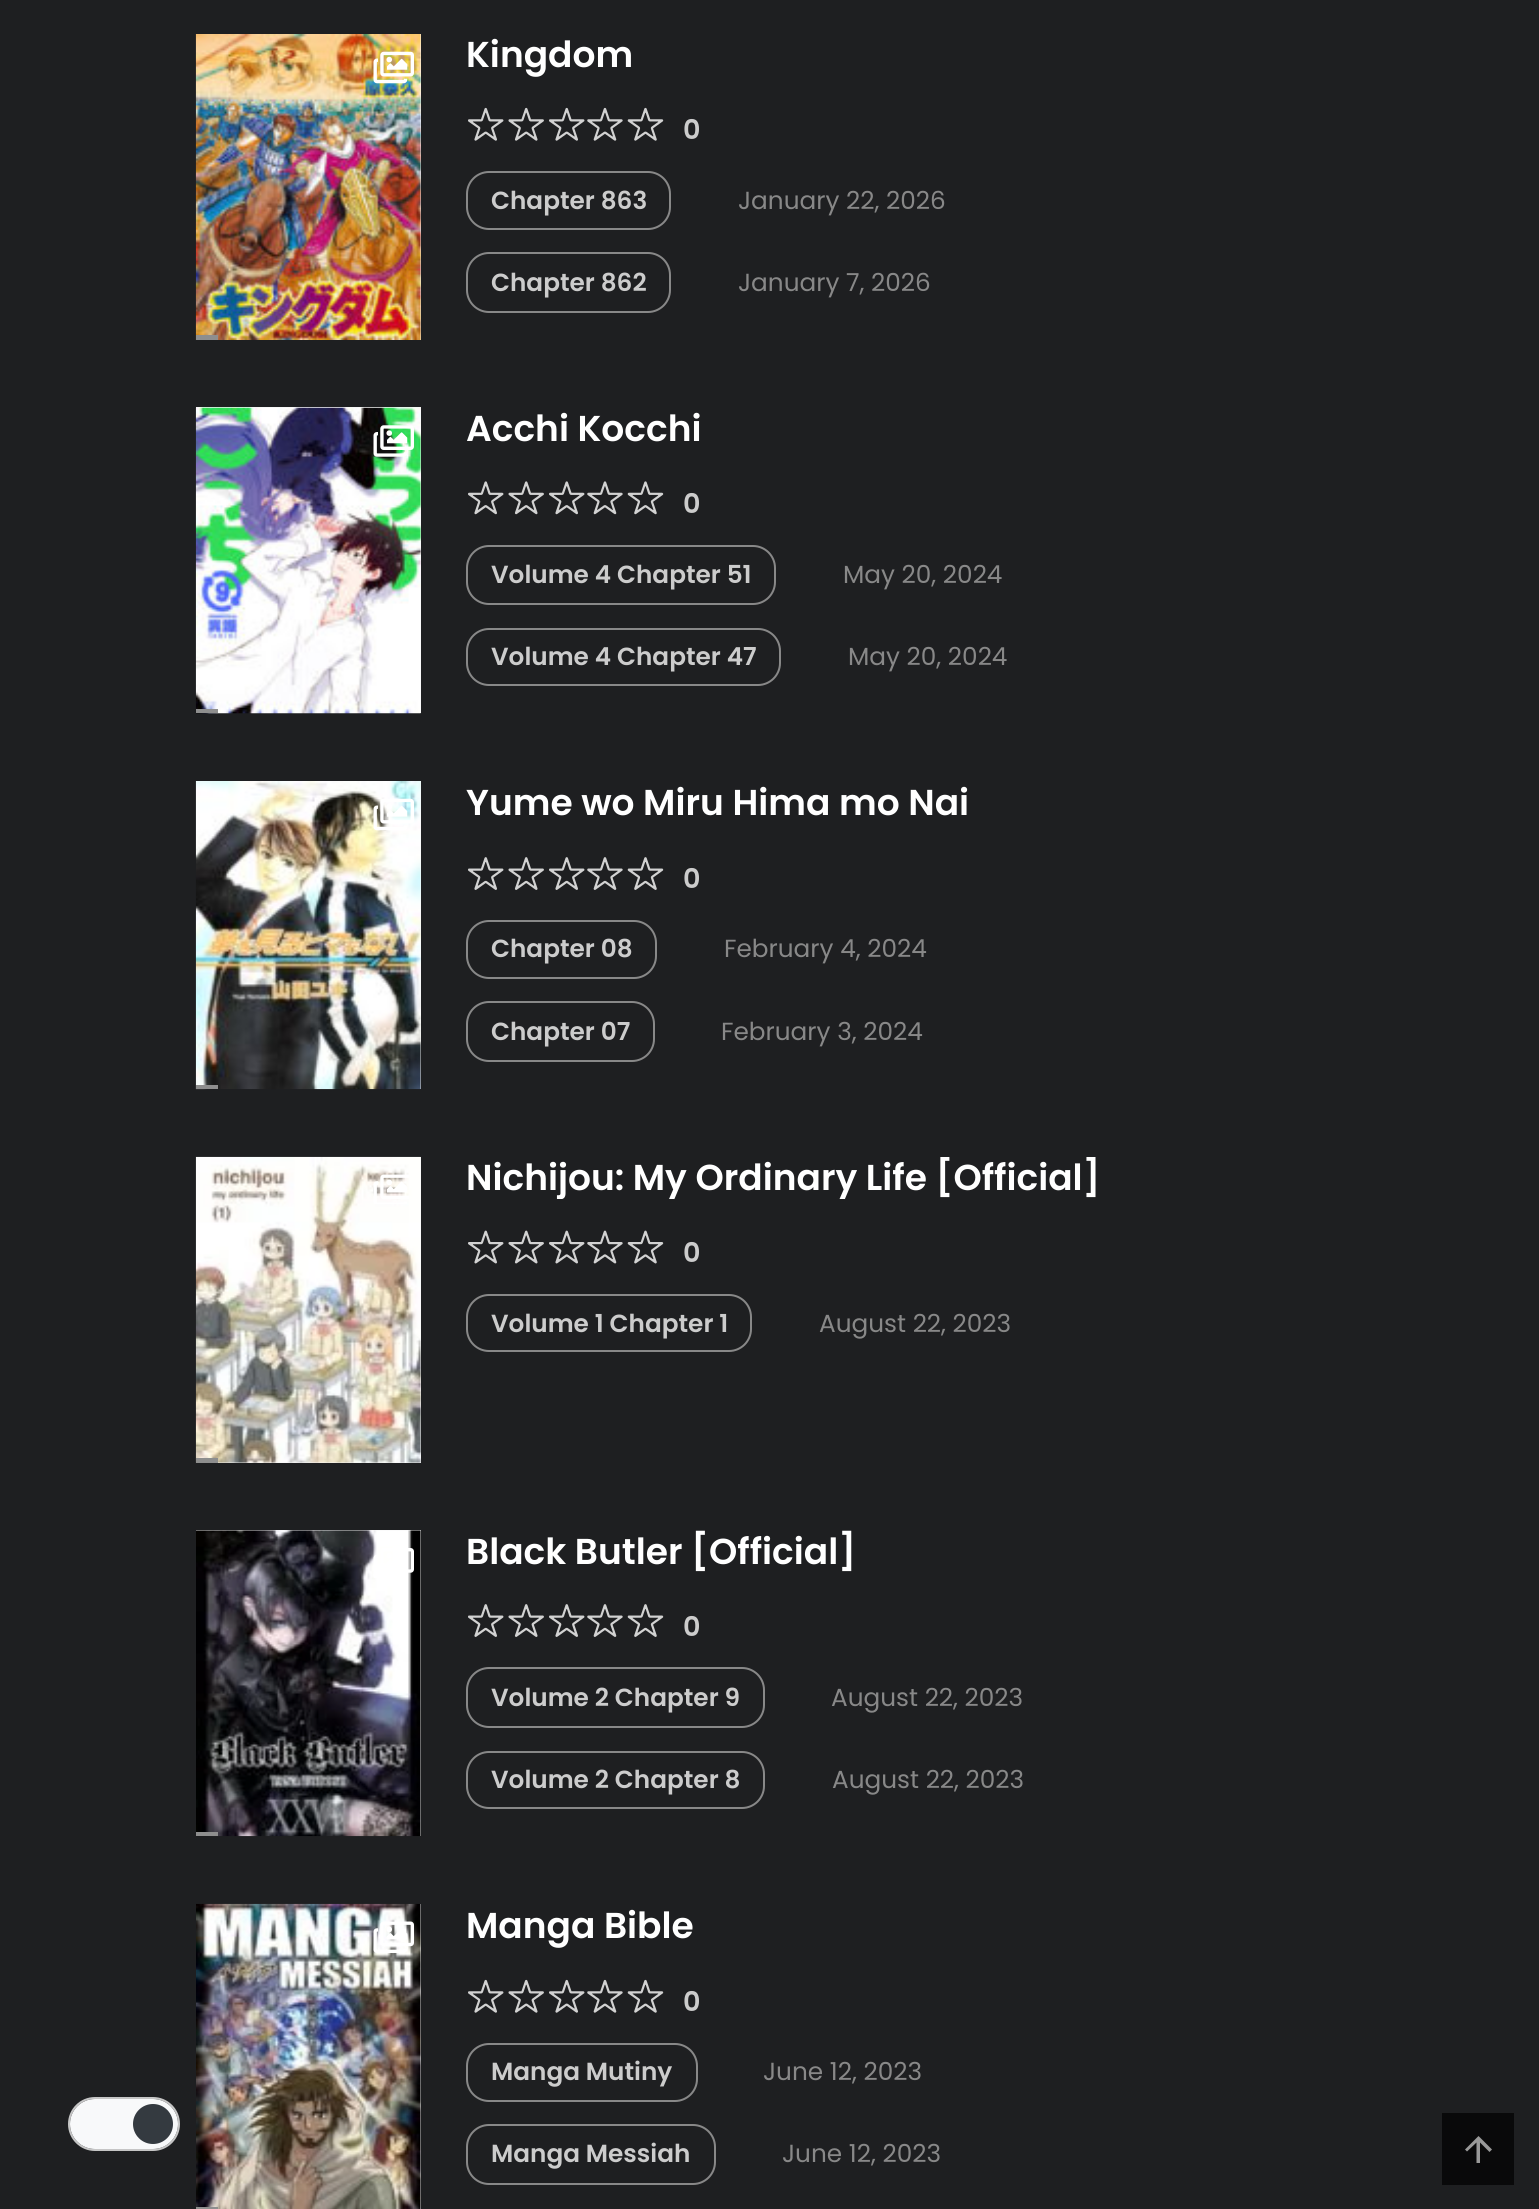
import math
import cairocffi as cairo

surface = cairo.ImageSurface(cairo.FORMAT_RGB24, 1539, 2209)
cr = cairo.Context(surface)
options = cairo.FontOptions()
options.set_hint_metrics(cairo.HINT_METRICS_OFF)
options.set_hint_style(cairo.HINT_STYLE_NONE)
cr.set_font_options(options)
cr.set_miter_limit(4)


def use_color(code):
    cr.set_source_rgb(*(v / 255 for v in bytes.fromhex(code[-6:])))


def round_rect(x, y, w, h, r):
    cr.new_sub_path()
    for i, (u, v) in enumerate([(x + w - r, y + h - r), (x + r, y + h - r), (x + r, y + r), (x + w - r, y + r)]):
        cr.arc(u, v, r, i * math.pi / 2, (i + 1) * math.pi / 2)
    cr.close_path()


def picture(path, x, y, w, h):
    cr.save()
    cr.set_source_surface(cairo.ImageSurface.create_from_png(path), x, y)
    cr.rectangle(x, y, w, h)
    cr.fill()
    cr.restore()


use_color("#1e1f21")
cr.paint()
round_rect(69, 2098, 110, 52, 26)
use_color("#c6c6c6")
cr.stroke()
use_color("#f8f9fa")
round_rect(70, 2099, 108, 50, 25)
cr.fill()
use_color("#343a40")
cr.arc(153, 2124, 20, 0, 2 * math.pi)
cr.fill()
use_color("#f5f5f5")
cr.rectangle(420, 34, 1, 306)
cr.fill()
picture("img1.png", 195, 34, 226, 306)
use_color("#8e8e8e")
cr.rectangle(196, 335, 22, 5)
cr.fill()
picture("img2.png", 373, 51, 41, 33)
cr.select_font_face("Poppins SemiBold")
cr.set_font_size(36)
use_color("#ffffff")
cr.move_to(466, 67)
cr.show_text("Kingdom")
picture("img3.png", 468, 107, 36, 34)
picture("img4.png", 508, 107, 36, 34)
picture("img3.png", 549, 107, 36, 34)
picture("img5.png", 587, 107, 36, 34)
picture("img6.png", 627, 107, 37, 34)
cr.set_font_size(27)
use_color("#cccccc")
cr.move_to(683, 139)
cr.show_text("0")
round_rect(467, 172, 203, 57, 22)
use_color("#888888")
cr.stroke()
cr.set_font_size(24.75)
use_color("#cccccc")
cr.move_to(491, 209)
cr.show_text("Chapter 863")
cr.select_font_face("Poppins")
use_color("#888888")
cr.move_to(738, 209)
cr.show_text("January 22, 2026")
round_rect(467, 253, 203, 59, 22)
cr.stroke()
cr.select_font_face("Poppins SemiBold")
use_color("#cccccc")
cr.move_to(491, 291)
cr.show_text("Chapter 862")
cr.select_font_face("Poppins")
use_color("#888888")
cr.move_to(738, 291)
cr.show_text("January 7, 2026")
use_color("#f5f5f5")
cr.rectangle(196, 407, 225, 306)
cr.fill()
picture("img7.png", 195, 407, 226, 307)
use_color("#8e8e8e")
cr.rectangle(196, 709, 22, 4)
cr.fill()
picture("img8.png", 373, 425, 41, 32)
cr.select_font_face("Poppins SemiBold")
cr.set_font_size(36)
use_color("#ffffff")
cr.move_to(466, 441)
cr.show_text("Acchi Kocchi")
picture("img9.png", 468, 481, 36, 34)
picture("img10.png", 508, 481, 36, 34)
picture("img9.png", 549, 481, 36, 34)
picture("img11.png", 587, 481, 36, 34)
picture("img12.png", 627, 481, 37, 34)
cr.set_font_size(27)
use_color("#cccccc")
cr.move_to(683, 513)
cr.show_text("0")
round_rect(467, 546, 308, 58, 22)
use_color("#888888")
cr.stroke()
cr.set_font_size(24.75)
use_color("#cccccc")
cr.move_to(491, 583)
cr.show_text("Volume 4 Chapter 51")
cr.select_font_face("Poppins")
use_color("#888888")
cr.move_to(843, 583)
cr.show_text("May 20, 2024")
round_rect(467, 629, 313, 56, 22)
cr.stroke()
cr.select_font_face("Poppins SemiBold")
use_color("#cccccc")
cr.move_to(491, 665)
cr.show_text("Volume 4 Chapter 47")
cr.select_font_face("Poppins")
use_color("#888888")
cr.move_to(848, 665)
cr.show_text("May 20, 2024")
use_color("#f5f5f5")
cr.rectangle(420, 781, 1, 308)
cr.fill()
picture("img13.png", 195, 781, 226, 309)
use_color("#8e8e8e")
cr.rectangle(196, 1085, 22, 4)
cr.fill()
picture("img14.png", 373, 798, 41, 33)
cr.select_font_face("Poppins SemiBold")
cr.set_font_size(36)
use_color("#ffffff")
cr.move_to(466, 815)
cr.show_text("Yume wo Miru Hima mo Nai")
picture("img15.png", 468, 857, 36, 33)
picture("img16.png", 508, 857, 36, 33)
picture("img15.png", 549, 857, 36, 33)
picture("img17.png", 587, 857, 36, 33)
picture("img18.png", 627, 857, 37, 33)
cr.set_font_size(27)
use_color("#cccccc")
cr.move_to(683, 888)
cr.show_text("0")
round_rect(467, 921, 189, 57, 22)
use_color("#888888")
cr.stroke()
cr.set_font_size(24.75)
use_color("#cccccc")
cr.move_to(491, 957)
cr.show_text("Chapter 08")
cr.select_font_face("Poppins")
use_color("#888888")
cr.move_to(724, 957)
cr.show_text("February 4, 2024")
round_rect(467, 1002, 187, 59, 22)
cr.stroke()
cr.select_font_face("Poppins SemiBold")
use_color("#cccccc")
cr.move_to(491, 1040)
cr.show_text("Chapter 07")
cr.select_font_face("Poppins")
use_color("#888888")
cr.move_to(721, 1040)
cr.show_text("February 3, 2024")
use_color("#f5f5f5")
cr.rectangle(218, 1157, 203, 306)
cr.fill()
picture("img19.png", 195, 1156, 226, 307)
use_color("#8e8e8e")
cr.rectangle(196, 1458, 22, 5)
cr.fill()
picture("img20.png", 373, 1174, 36, 30)
cr.save()
cr.rectangle(466, 1157, 877, 42)
cr.clip()
cr.select_font_face("Poppins SemiBold")
cr.set_font_size(36)
use_color("#ffffff")
cr.move_to(466, 1190)
cr.show_text("Nichijou: My Ordinary Life [Official]")
cr.restore()
picture("img21.png", 468, 1230, 36, 34)
picture("img22.png", 508, 1230, 36, 34)
picture("img21.png", 549, 1230, 36, 34)
picture("img23.png", 587, 1230, 36, 34)
picture("img24.png", 627, 1230, 37, 34)
cr.select_font_face("Poppins SemiBold")
cr.set_font_size(27)
use_color("#cccccc")
cr.move_to(683, 1262)
cr.show_text("0")
round_rect(467, 1295, 284, 56, 22)
use_color("#888888")
cr.stroke()
cr.set_font_size(24.75)
use_color("#cccccc")
cr.move_to(491, 1332)
cr.show_text("Volume 1 Chapter 1")
cr.select_font_face("Poppins")
use_color("#888888")
cr.move_to(819, 1332)
cr.show_text("August 22, 2023")
use_color("#f5f5f5")
cr.rectangle(196, 1530, 225, 306)
cr.fill()
picture("img25.png", 196, 1530, 225, 307)
use_color("#8e8e8e")
cr.rectangle(196, 1832, 22, 4)
cr.fill()
picture("img26.png", 373, 1548, 41, 30)
cr.select_font_face("Poppins SemiBold")
cr.set_font_size(36)
use_color("#ffffff")
cr.move_to(466, 1564)
cr.show_text("Black Butler [Official]")
picture("img15.png", 468, 1604, 36, 33)
picture("img16.png", 508, 1604, 36, 33)
picture("img15.png", 549, 1604, 36, 33)
picture("img17.png", 587, 1604, 36, 33)
picture("img18.png", 627, 1604, 37, 33)
cr.set_font_size(27)
use_color("#cccccc")
cr.move_to(683, 1636)
cr.show_text("0")
round_rect(467, 1668, 297, 59, 22)
use_color("#888888")
cr.stroke()
cr.set_font_size(24.75)
use_color("#cccccc")
cr.move_to(491, 1706)
cr.show_text("Volume 2 Chapter 9")
cr.select_font_face("Poppins")
use_color("#888888")
cr.move_to(831, 1706)
cr.show_text("August 22, 2023")
round_rect(467, 1752, 297, 56, 22)
cr.stroke()
cr.select_font_face("Poppins SemiBold")
use_color("#cccccc")
cr.move_to(491, 1788)
cr.show_text("Volume 2 Chapter 8")
cr.select_font_face("Poppins")
use_color("#888888")
cr.move_to(832, 1788)
cr.show_text("August 22, 2023")
use_color("#f5f5f5")
cr.rectangle(420, 1904, 1, 305)
cr.fill()
picture("img27.png", 196, 1903, 225, 306)
use_color("#8e8e8e")
cr.rectangle(196, 2207, 22, 2)
cr.fill()
picture("img28.png", 373, 1921, 41, 32)
cr.select_font_face("Poppins SemiBold")
cr.set_font_size(36)
use_color("#ffffff")
cr.move_to(466, 1938)
cr.show_text("Manga Bible")
picture("img3.png", 468, 1979, 36, 34)
picture("img4.png", 508, 1979, 36, 34)
picture("img3.png", 549, 1979, 36, 34)
picture("img5.png", 587, 1979, 36, 34)
picture("img6.png", 627, 1979, 37, 34)
cr.set_font_size(27)
use_color("#cccccc")
cr.move_to(683, 2011)
cr.show_text("0")
round_rect(467, 2044, 230, 57, 22)
use_color("#888888")
cr.stroke()
cr.set_font_size(24.75)
use_color("#cccccc")
cr.move_to(491, 2080)
cr.show_text("Manga Mutiny")
cr.select_font_face("Poppins")
use_color("#888888")
cr.move_to(763, 2080)
cr.show_text("June 12, 2023")
round_rect(467, 2125, 248, 59, 22)
cr.stroke()
cr.select_font_face("Poppins SemiBold")
use_color("#cccccc")
cr.move_to(491, 2162)
cr.show_text("Manga Messiah")
cr.select_font_face("Poppins")
use_color("#888888")
cr.move_to(782, 2162)
cr.show_text("June 12, 2023")
use_color("#09090a")
cr.rectangle(1442, 2113, 72, 72)
cr.fill()
use_color("#999999")
cr.new_path()
cr.move_to(1480, 2163)
cr.line_to(1476.5, 2163)
cr.line_to(1476.5, 2142.5)
cr.line_to(1467, 2151.5)
cr.line_to(1465, 2149.5)
cr.line_to(1478.5, 2136)
cr.line_to(1492, 2149.5)
cr.line_to(1489.5, 2152)
cr.line_to(1480, 2142.5)
cr.close_path()
cr.fill()
surface.write_to_png("result.png")
